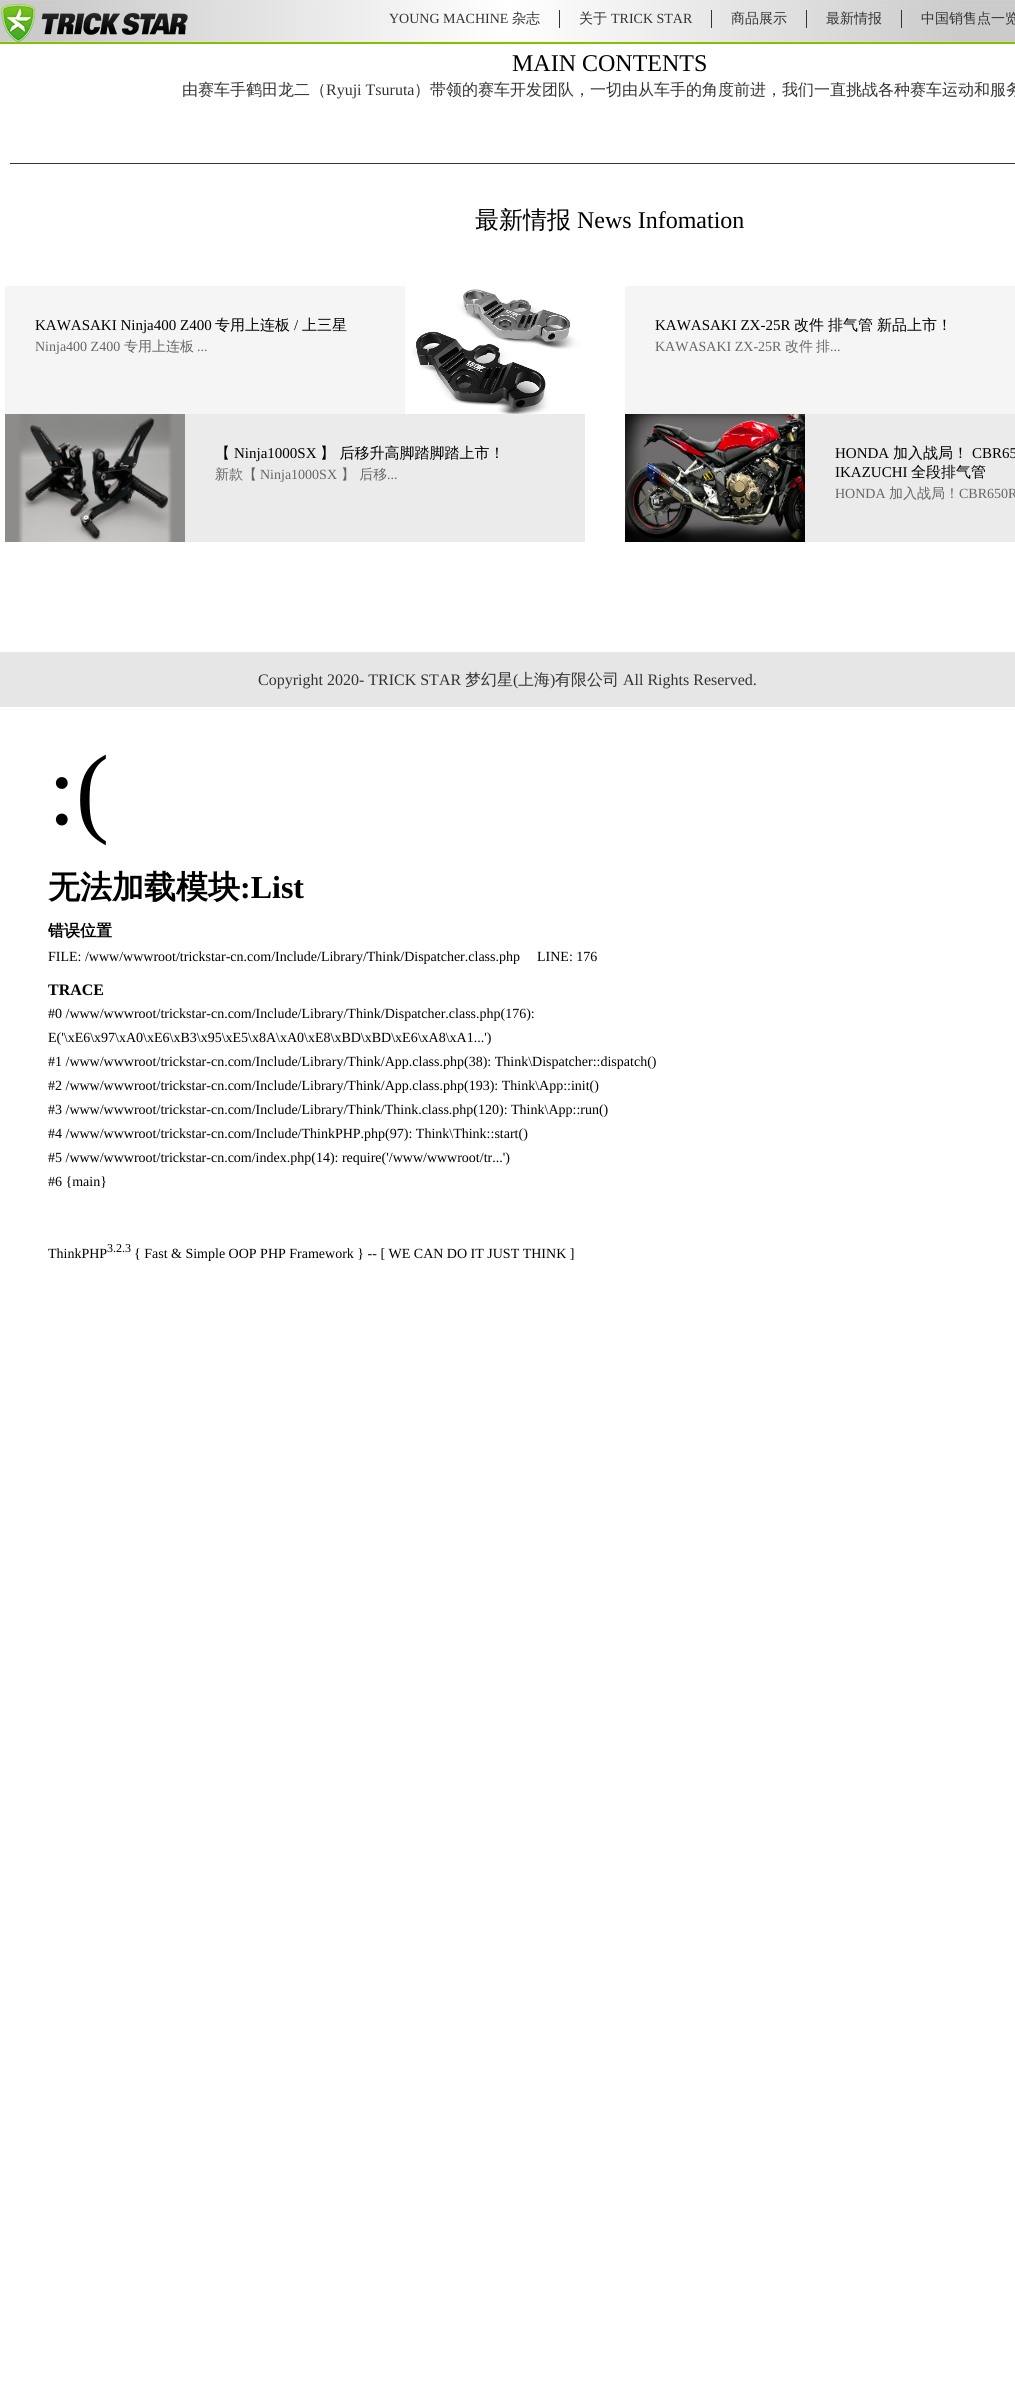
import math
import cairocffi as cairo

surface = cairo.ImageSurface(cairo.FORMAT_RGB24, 1015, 2407)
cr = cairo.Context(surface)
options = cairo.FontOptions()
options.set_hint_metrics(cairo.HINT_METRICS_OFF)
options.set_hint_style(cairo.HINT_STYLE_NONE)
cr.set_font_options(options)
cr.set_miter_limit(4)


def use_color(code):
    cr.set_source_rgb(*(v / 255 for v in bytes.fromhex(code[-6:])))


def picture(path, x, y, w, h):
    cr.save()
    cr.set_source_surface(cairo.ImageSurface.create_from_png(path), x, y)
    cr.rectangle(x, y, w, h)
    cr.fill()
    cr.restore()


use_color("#ffffff")
cr.paint()
picture("img1.png", 0, 0, 1015, 42)
use_color("#81c00f")
cr.rectangle(0, 42, 1015, 2)
cr.fill()
picture("img2.png", 1, 4, 187, 38)
cr.select_font_face("Liberation Serif")
cr.set_font_size(14)
use_color("#333333")
cr.move_to(389, 23)
cr.show_text("YOUNG MACHINE")
cr.select_font_face("WenQuanYi Zen Hei Medium")
cr.move_to(512, 23)
cr.show_text("杂志")
cr.rectangle(559, 10, 1, 18)
cr.fill()
cr.move_to(579, 23)
cr.show_text("关于")
cr.select_font_face("Liberation Serif")
cr.move_to(611, 23)
cr.show_text("TRICK STAR")
cr.rectangle(711, 10, 1, 18)
cr.fill()
cr.select_font_face("WenQuanYi Zen Hei Medium")
cr.move_to(731, 23)
cr.show_text("商品展示")
cr.rectangle(806, 10, 1, 18)
cr.fill()
cr.move_to(826, 23)
cr.show_text("最新情报")
cr.rectangle(901, 10, 1, 18)
cr.fill()
cr.move_to(921, 23)
cr.show_text("中国销售点一览")
cr.select_font_face("Liberation Serif")
cr.set_font_size(24)
use_color("#000000")
cr.move_to(512, 71)
cr.show_text("MAIN CONTENTS")
cr.select_font_face("WenQuanYi Zen Hei Medium")
cr.set_font_size(16)
use_color("#333333")
cr.move_to(182, 95)
cr.show_text("由赛车手鹤田龙二（")
cr.select_font_face("Liberation Serif")
cr.move_to(326, 95)
cr.show_text("Ryuji Tsuruta")
cr.select_font_face("WenQuanYi Zen Hei Medium")
cr.move_to(414, 95)
cr.show_text("）带领的赛车开发团队，一切由从车手的角度前进，我们一直挑战各种赛车运动和服务")
cr.rectangle(10, 163, 1005, 1)
cr.fill()
cr.set_font_size(24)
use_color("#000000")
cr.move_to(475, 228)
cr.show_text("最新情报")
cr.select_font_face("Liberation Serif")
cr.move_to(577, 228)
cr.show_text("News Infomation")
use_color("#f5f5f5")
cr.rectangle(5, 286, 400, 128)
cr.fill()
cr.set_font_size(15)
use_color("#000000")
cr.move_to(35, 330)
cr.show_text("KAWASAKI Ninja400 Z400")
cr.select_font_face("WenQuanYi Zen Hei Medium")
cr.move_to(215, 330)
cr.show_text("专用上连板")
cr.select_font_face("Liberation Serif")
cr.move_to(294, 330)
cr.show_text("/")
cr.select_font_face("WenQuanYi Zen Hei Medium")
cr.move_to(302, 330)
cr.show_text("上三星")
cr.select_font_face("Liberation Serif")
cr.set_font_size(14)
use_color("#666666")
cr.move_to(35, 351)
cr.show_text("Ninja400 Z400")
cr.select_font_face("WenQuanYi Zen Hei Medium")
cr.move_to(124, 351)
cr.show_text("专用上连板")
cr.select_font_face("Liberation Serif")
cr.move_to(197, 351)
cr.show_text("...")
picture("img3.png", 405, 286, 180, 128)
use_color("#f5f5f5")
cr.rectangle(625, 286, 390, 128)
cr.fill()
cr.set_font_size(15)
use_color("#000000")
cr.move_to(655, 330)
cr.show_text("KAWASAKI ZX-25R")
cr.select_font_face("WenQuanYi Zen Hei Medium")
cr.move_to(794, 330)
cr.show_text("改件")
cr.move_to(828, 330)
cr.show_text("排气管")
cr.move_to(877, 330)
cr.show_text("新品上市！")
cr.select_font_face("Liberation Serif")
cr.set_font_size(14)
use_color("#666666")
cr.move_to(655, 351)
cr.show_text("KAWASAKI ZX-25R")
cr.select_font_face("WenQuanYi Zen Hei Medium")
cr.move_to(785, 351)
cr.show_text("改件")
cr.move_to(816, 351)
cr.show_text("排")
cr.select_font_face("Liberation Serif")
cr.move_to(830, 351)
cr.show_text("...")
use_color("#ebebeb")
cr.rectangle(185, 414, 400, 128)
cr.fill()
picture("img4.png", 5, 414, 180, 128)
cr.select_font_face("WenQuanYi Zen Hei Medium")
cr.set_font_size(15)
use_color("#000000")
cr.move_to(215, 458)
cr.show_text("【")
cr.select_font_face("Liberation Serif")
cr.move_to(234, 458)
cr.show_text("Ninja1000SX")
cr.select_font_face("WenQuanYi Zen Hei Medium")
cr.move_to(320, 458)
cr.show_text("】 后移升高脚踏脚踏上市！")
cr.set_font_size(14)
use_color("#666666")
cr.move_to(215, 479)
cr.show_text("新款【")
cr.select_font_face("Liberation Serif")
cr.move_to(260, 479)
cr.show_text("Ninja1000SX")
cr.select_font_face("WenQuanYi Zen Hei Medium")
cr.move_to(341, 479)
cr.show_text("】 后移")
cr.select_font_face("Liberation Serif")
cr.move_to(387, 479)
cr.show_text("...")
use_color("#ebebeb")
cr.rectangle(805, 414, 210, 128)
cr.fill()
picture("img5.png", 625, 414, 180, 128)
cr.set_font_size(15)
use_color("#000000")
cr.move_to(835, 458)
cr.show_text("HONDA")
cr.select_font_face("WenQuanYi Zen Hei Medium")
cr.move_to(893, 458)
cr.show_text("加入战局！")
cr.select_font_face("Liberation Serif")
cr.move_to(972, 458)
cr.show_text("CBR65")
cr.move_to(835, 477)
cr.show_text("IKAZUCHI")
cr.select_font_face("WenQuanYi Zen Hei Medium")
cr.move_to(911, 477)
cr.show_text("全段排气管")
cr.select_font_face("Liberation Serif")
cr.set_font_size(14)
use_color("#666666")
cr.move_to(835, 498)
cr.show_text("HONDA")
cr.select_font_face("WenQuanYi Zen Hei Medium")
cr.move_to(889, 498)
cr.show_text("加入战局！")
cr.select_font_face("Liberation Serif")
cr.move_to(959, 498)
cr.show_text("CBR650R")
use_color("#e6e6e6")
cr.rectangle(0, 652, 1015, 55)
cr.fill()
cr.set_font_size(16)
use_color("#333333")
cr.move_to(258, 685)
cr.show_text("Copyright 2020- TRICK STAR")
cr.select_font_face("WenQuanYi Zen Hei Medium")
cr.move_to(465, 685)
cr.show_text("梦幻星")
cr.select_font_face("Liberation Serif")
cr.move_to(513, 685)
cr.show_text("(")
cr.select_font_face("WenQuanYi Zen Hei Medium")
cr.move_to(518, 685)
cr.show_text("上海")
cr.select_font_face("Liberation Serif")
cr.move_to(550, 685)
cr.show_text(")")
cr.select_font_face("WenQuanYi Zen Hei Medium")
cr.move_to(555, 685)
cr.show_text("有限公司")
cr.select_font_face("Liberation Serif")
cr.move_to(623, 685)
cr.show_text("All Rights Reserved.")
cr.set_font_size(100)
use_color("#000000")
cr.move_to(48, 824)
cr.show_text(":(")
cr.select_font_face("WenQuanYi Zen Hei", cairo.FONT_SLANT_NORMAL, cairo.FONT_WEIGHT_BOLD)
cr.set_font_size(32)
cr.move_to(48, 898)
cr.show_text("无法加载模块")
cr.select_font_face("Liberation Serif", cairo.FONT_SLANT_NORMAL, cairo.FONT_WEIGHT_BOLD)
cr.move_to(240, 898)
cr.show_text(":List")
cr.select_font_face("WenQuanYi Zen Hei", cairo.FONT_SLANT_NORMAL, cairo.FONT_WEIGHT_BOLD)
cr.set_font_size(16)
cr.move_to(48, 936)
cr.show_text("错误位置")
cr.select_font_face("Liberation Serif")
cr.set_font_size(14)
cr.move_to(48, 961)
cr.show_text("FILE: /www/wwwroot/trickstar-cn.com/Include/Library/Think/Dispatcher.class.php")
cr.move_to(537, 961)
cr.show_text("LINE: 176")
cr.select_font_face("Liberation Serif", cairo.FONT_SLANT_NORMAL, cairo.FONT_WEIGHT_BOLD)
cr.set_font_size(16)
cr.move_to(48, 995)
cr.show_text("TRACE")
cr.select_font_face("Liberation Serif")
cr.set_font_size(14)
cr.move_to(48, 1018)
cr.show_text("#0 /www/wwwroot/trickstar-cn.com/Include/Library/Think/Dispatcher.class.php(176):")
cr.move_to(48, 1042)
cr.show_text("E('\\xE6\\x97\\xA0\\xE6\\xB3\\x95\\xE5\\x8A\\xA0\\xE8\\xBD\\xBD\\xE6\\xA8\\xA1...')")
cr.move_to(48, 1066)
cr.show_text("#1 /www/wwwroot/trickstar-cn.com/Include/Library/Think/App.class.php(38): Think\\Dispatcher::dispatch()")
cr.move_to(48, 1090)
cr.show_text("#2 /www/wwwroot/trickstar-cn.com/Include/Library/Think/App.class.php(193): Think\\App::init()")
cr.move_to(48, 1114)
cr.show_text("#3 /www/wwwroot/trickstar-cn.com/Include/Library/Think/Think.class.php(120): Think\\App::run()")
cr.move_to(48, 1138)
cr.show_text("#4 /www/wwwroot/trickstar-cn.com/Include/ThinkPHP.php(97): Think\\Think::start()")
cr.move_to(48, 1162)
cr.show_text("#5 /www/wwwroot/trickstar-cn.com/index.php(14): require('/www/wwwroot/tr...')")
cr.move_to(48, 1186)
cr.show_text("#6 {main}")
cr.move_to(48, 1258)
cr.show_text("ThinkPHP")
cr.set_font_size(12)
cr.move_to(107, 1252)
cr.show_text("3.2.3")
cr.set_font_size(14)
cr.move_to(134, 1258)
cr.show_text("{ Fast & Simple OOP PHP Framework } -- [ WE CAN DO IT JUST THINK ]")
surface.write_to_png("result.png")
